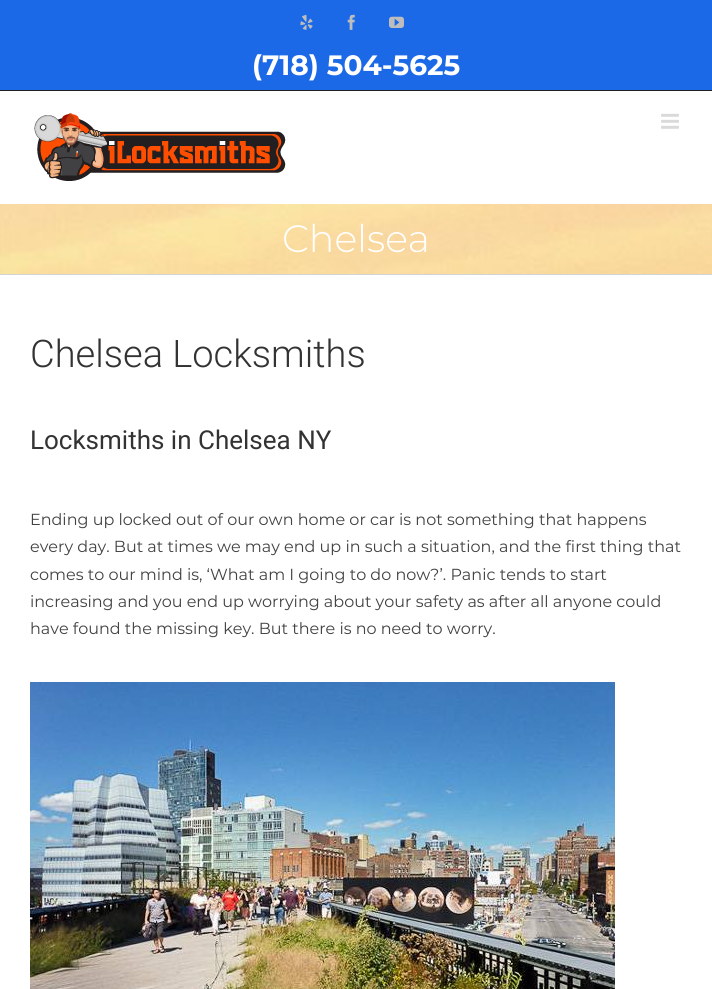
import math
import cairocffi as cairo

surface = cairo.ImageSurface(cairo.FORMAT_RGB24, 712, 989)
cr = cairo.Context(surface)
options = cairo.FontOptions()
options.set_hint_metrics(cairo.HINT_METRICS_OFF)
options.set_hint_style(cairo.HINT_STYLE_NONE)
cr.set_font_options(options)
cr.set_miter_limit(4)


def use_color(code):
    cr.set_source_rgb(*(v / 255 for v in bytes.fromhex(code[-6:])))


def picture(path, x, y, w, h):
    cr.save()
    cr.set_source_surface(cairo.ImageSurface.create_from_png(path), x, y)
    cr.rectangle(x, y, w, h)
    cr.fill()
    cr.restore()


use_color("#ffffff")
cr.paint()
use_color("#1c69e7")
cr.rectangle(0, 0, 712, 90)
cr.fill()
use_color("#212121")
cr.rectangle(0, 90, 712, 1)
cr.fill()
picture("img1.png", 300, 14, 13, 16)
picture("img2.png", 347, 14, 8, 16)
picture("img3.png", 389, 16, 15, 12)
cr.select_font_face("Montserrat", cairo.FONT_SLANT_NORMAL, cairo.FONT_WEIGHT_BOLD)
cr.set_font_size(28)
use_color("#ffffff")
cr.move_to(252, 75)
cr.show_text("(718) 504-5625")
picture("img4.png", 34, 113, 252, 68)
picture("img5.png", 661, 113, 18, 16)
picture("img6.png", 0, 204, 712, 70)
use_color("#d2d3d4")
cr.rectangle(0, 274, 712, 1)
cr.fill()
cr.select_font_face("Montserrat Light")
cr.set_font_size(38)
use_color("#ffffff")
cr.move_to(282, 252)
cr.show_text("Chelsea")
cr.select_font_face("Roboto Light")
use_color("#333333")
cr.move_to(30, 367)
cr.show_text("Chelsea Locksmiths")
cr.select_font_face("Roboto")
cr.set_font_size(26)
cr.move_to(30, 449)
cr.show_text("Locksmiths in Chelsea NY")
cr.select_font_face("Montserrat")
cr.set_font_size(16)
use_color("#424242")
cr.move_to(30, 525)
cr.show_text("Ending up locked out of our own home or car is not something that happens")
cr.move_to(30, 552)
cr.show_text("every day. But at times we may end up in such a situation, and the first thing that")
cr.move_to(30, 580)
cr.show_text("comes to our mind is, ‘What am I going to do now?’. Panic tends to start")
cr.move_to(30, 607)
cr.show_text("increasing and you end up worrying about your safety as after all anyone could")
cr.move_to(30, 634)
cr.show_text("have found the missing key. But there is no need to worry.")
picture("img7.png", 30, 682, 585, 307)
surface.write_to_png("result.png")
